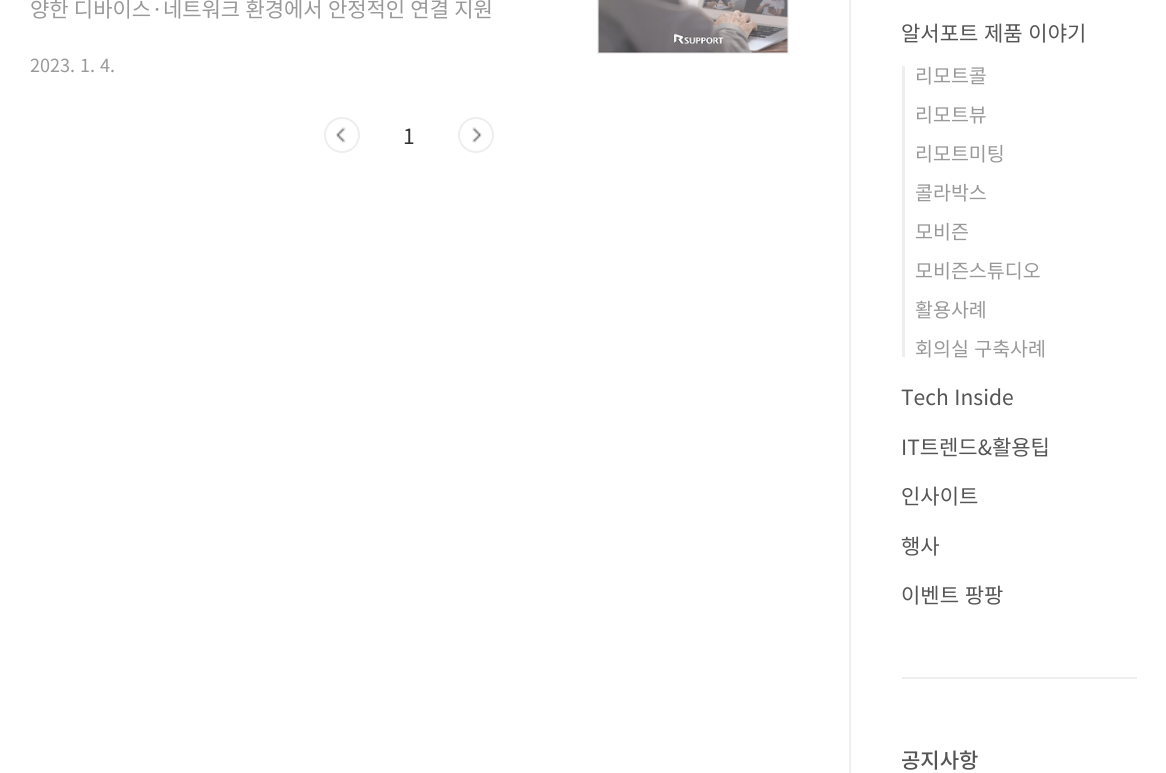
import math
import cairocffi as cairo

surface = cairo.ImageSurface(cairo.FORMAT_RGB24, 1166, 773)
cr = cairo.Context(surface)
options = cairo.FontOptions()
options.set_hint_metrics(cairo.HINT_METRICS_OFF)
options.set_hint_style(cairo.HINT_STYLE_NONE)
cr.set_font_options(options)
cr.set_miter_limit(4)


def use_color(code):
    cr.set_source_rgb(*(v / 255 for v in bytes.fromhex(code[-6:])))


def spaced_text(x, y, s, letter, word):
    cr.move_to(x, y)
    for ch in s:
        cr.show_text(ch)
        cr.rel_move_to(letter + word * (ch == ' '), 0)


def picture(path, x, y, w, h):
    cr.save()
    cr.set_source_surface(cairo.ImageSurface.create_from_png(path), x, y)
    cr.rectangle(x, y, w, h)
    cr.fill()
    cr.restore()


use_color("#ffffff")
cr.paint()
cr.select_font_face("Noto Sans KR")
cr.set_font_size(21)
use_color("#999999")
spaced_text(30, 17, "양한 디바이스·네트워크 환경에서 안정적인 연결 지원", 0, 0.5)
cr.rectangle(598, -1, 190, 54)
use_color("#f1f1f1")
cr.stroke()
picture("img1.png", 598, 0, 190, 53)
cr.set_font_size(18)
use_color("#999999")
spaced_text(30, 72, "2023. 1. 4.", 0, 1)
picture("img2.png", 336, 127, 10, 16)
cr.arc(342, 135, 17, 0, 2 * math.pi)
use_color("#eeeeee")
cr.stroke()
cr.set_font_size(21)
use_color("#333333")
cr.move_to(403, 144)
cr.show_text("1")
picture("img3.png", 472, 127, 10, 16)
cr.arc(476, 135, 17, 0, 2 * math.pi)
use_color("#eeeeee")
cr.stroke()
cr.rectangle(849, 0, 2, 773)
cr.fill()
use_color("#555555")
spaced_text(901, 41, "알서포트 제품 이야기", 0, 1)
use_color("#eeeeee")
cr.rectangle(902, 66, 3, 291)
cr.fill()
cr.set_font_size(19.5)
use_color("#999999")
cr.move_to(915, 83)
cr.show_text("리모트콜")
cr.move_to(915, 122)
cr.show_text("리모트뷰")
cr.move_to(915, 161)
cr.show_text("리모트미팅")
cr.move_to(915, 200)
cr.show_text("콜라박스")
cr.move_to(915, 239)
cr.show_text("모비즌")
cr.move_to(915, 278)
cr.show_text("모비즌스튜디오")
cr.move_to(915, 317)
cr.show_text("활용사례")
spaced_text(915, 356, "회의실 구축사례", 0, 1)
cr.set_font_size(21)
use_color("#555555")
spaced_text(901, 405, "Tech Inside", 0, 1)
cr.move_to(901, 455)
cr.show_text("IT트렌드&활용팁")
cr.move_to(901, 504)
cr.show_text("인사이트")
cr.move_to(901, 554)
cr.show_text("행사")
spaced_text(901, 603, "이벤트 팡팡", 0, 1)
use_color("#eeeeee")
cr.rectangle(902, 677, 235, 2)
cr.fill()
cr.select_font_face("Noto Sans KR Medium")
use_color("#555555")
cr.move_to(901, 768)
cr.show_text("공지사항")
surface.write_to_png("result.png")
